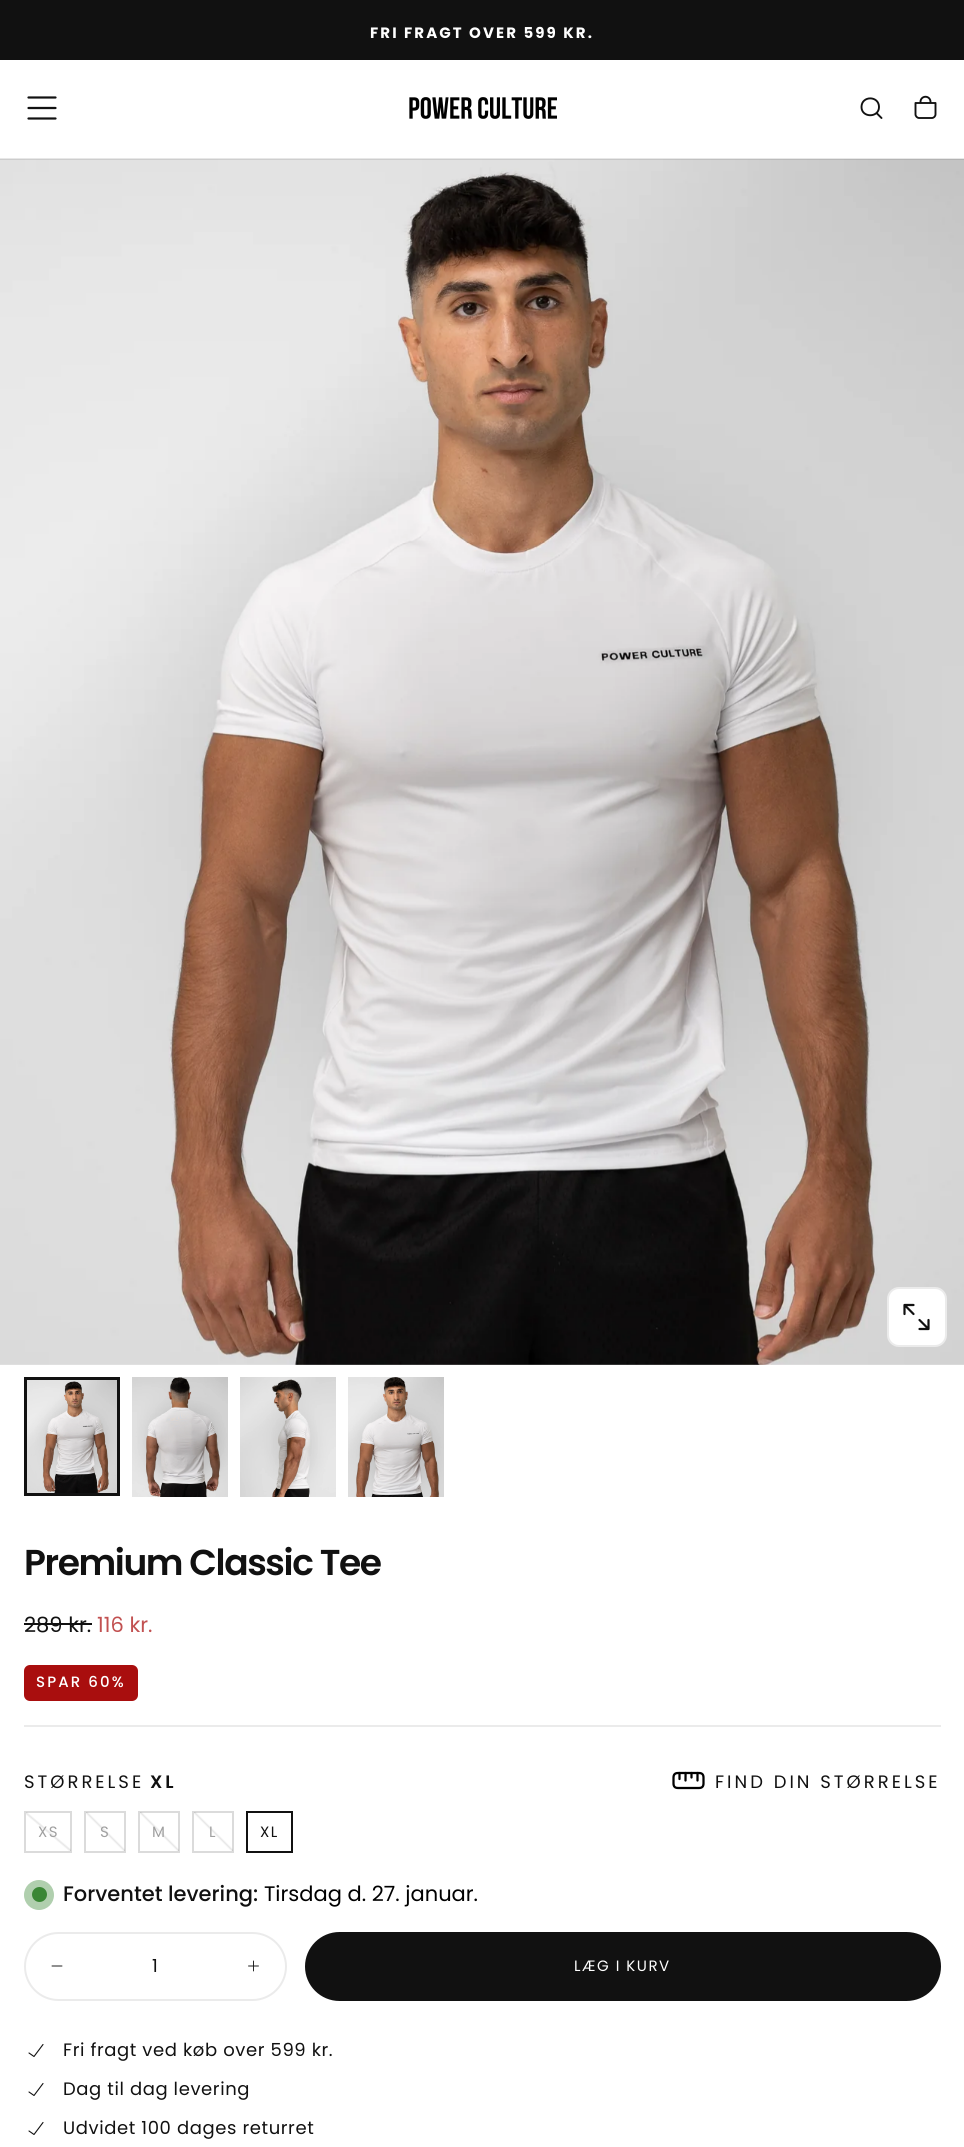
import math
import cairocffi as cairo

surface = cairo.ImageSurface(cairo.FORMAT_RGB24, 964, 2147)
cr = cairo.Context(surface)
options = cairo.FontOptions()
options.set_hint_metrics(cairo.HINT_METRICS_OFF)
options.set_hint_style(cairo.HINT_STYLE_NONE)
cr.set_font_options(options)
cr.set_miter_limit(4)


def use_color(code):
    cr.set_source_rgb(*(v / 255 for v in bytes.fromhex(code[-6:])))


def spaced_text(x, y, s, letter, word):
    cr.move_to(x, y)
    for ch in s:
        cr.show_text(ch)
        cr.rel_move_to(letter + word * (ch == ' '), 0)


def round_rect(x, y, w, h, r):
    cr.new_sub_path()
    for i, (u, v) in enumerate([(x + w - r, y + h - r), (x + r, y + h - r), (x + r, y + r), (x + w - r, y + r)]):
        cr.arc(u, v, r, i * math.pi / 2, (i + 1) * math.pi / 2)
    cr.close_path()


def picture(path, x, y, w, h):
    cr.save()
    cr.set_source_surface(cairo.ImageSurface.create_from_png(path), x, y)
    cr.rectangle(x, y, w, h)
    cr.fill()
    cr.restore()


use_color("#ffffff")
cr.paint()
use_color("#111111")
cr.rectangle(0, 0, 964, 60)
cr.fill()
cr.select_font_face("Poppins", cairo.FONT_SLANT_NORMAL, cairo.FONT_WEIGHT_BOLD)
cr.set_font_size(15)
use_color("#ffffff")
spaced_text(370, 38, "FRI FRAGT OVER 599 KR.", 2.1, 0)
picture("img3.png", 0, 159, 964, 1206)
cr.set_source_rgba(0.067, 0.067, 0.067, 0.1)
cr.rectangle(0, 158, 964, 2)
cr.fill()
cr.new_path()
cr.move_to(28.5, 108)
cr.line_to(55.5, 108)
cr.move_to(28.5, 97.5)
cr.line_to(55.5, 97.5)
cr.move_to(28.5, 118.5)
cr.line_to(55.5, 118.5)
use_color("#111111")
cr.set_line_width(2.2)
cr.set_line_cap(cairo.LINE_CAP_ROUND)
cr.stroke()
picture("img1.png", 409, 97, 148, 22)
cr.new_path()
cr.move_to(881.5, 118)
cr.line_to(876.5, 113)
cr.move_to(879, 107)
cr.curve_to(879, 118, 861.5, 118, 861.5, 107)
cr.curve_to(861.5, 95.5, 879, 95.5, 879, 107)
cr.close_path()
cr.set_line_width(1.9)
cr.stroke()
picture("img2.png", 914, 95, 23, 24)
use_color("#ffffff")
round_rect(888, 1288, 58, 58, 11)
cr.fill_preserve()
use_color("#ebebeb")
cr.set_line_width(2)
cr.set_line_cap(cairo.LINE_CAP_BUTT)
cr.stroke()
cr.new_path()
cr.move_to(913.5, 1314)
cr.line_to(904.5, 1305)
cr.move_to(904.5, 1314)
cr.line_to(904.5, 1305)
cr.line_to(913.5, 1305)
cr.move_to(919.5, 1320)
cr.line_to(928.5, 1329)
cr.move_to(928.5, 1320)
cr.line_to(928.5, 1329)
cr.line_to(919.5, 1329)
use_color("#111111")
cr.set_line_width(2.2)
cr.set_line_cap(cairo.LINE_CAP_ROUND)
cr.set_line_join(cairo.LINE_JOIN_ROUND)
cr.stroke()
cr.rectangle(25.5, 1378.5, 93, 116)
cr.set_line_width(3)
cr.set_line_cap(cairo.LINE_CAP_BUTT)
cr.set_line_join(cairo.LINE_JOIN_MITER)
cr.stroke()
picture("img4.png", 27, 1380, 90, 113)
picture("img5.png", 132, 1377, 96, 120)
picture("img6.png", 240, 1377, 96, 120)
picture("img7.png", 348, 1377, 96, 120)
cr.select_font_face("Poppins SemiBold")
cr.set_font_size(36)
spaced_text(24, 1575, "Premium Classic Tee", -1.4, 0)
cr.select_font_face("Poppins")
cr.set_font_size(21)
cr.move_to(24, 1632)
cr.show_text("289 kr.")
cr.rectangle(24, 1623, 68, 2)
cr.fill()
use_color("#c25151")
cr.move_to(97, 1632)
cr.show_text("116 kr.")
use_color("#a90e0e")
round_rect(24, 1665, 114, 36, 6)
cr.fill()
cr.select_font_face("Poppins Medium")
cr.set_font_size(15)
use_color("#ffffff")
spaced_text(36, 1687, "SPAR 60%", 2.1, 0)
use_color("#ebebeb")
cr.rectangle(24, 1725, 917, 2)
cr.fill()
cr.select_font_face("Poppins")
cr.set_font_size(18)
use_color("#111111")
spaced_text(24, 1788, "STØRRELSE", 3, 0)
cr.select_font_face("Poppins SemiBold")
spaced_text(150, 1788, "XL", 3, 0)
picture("img8.png", 672, 1771, 33, 19)
cr.select_font_face("Poppins")
spaced_text(715, 1788, "FIND DIN STØRRELSE", 3, 0)
cr.rectangle(25, 1812, 46, 40)
use_color("#dbdbdb")
cr.set_line_width(2)
cr.stroke()
gradient = cairo.LinearGradient(29, 1854, 67, 1809)
gradient.add_color_stop_rgba(0.47, 0.067, 0.067, 0.067, 0)
gradient.add_color_stop_rgba(0.5, 0.067, 0.067, 0.067, 0.1)
gradient.add_color_stop_rgba(0.53, 0.067, 0.067, 0.067, 0)
cr.set_source(gradient)
cr.rectangle(26, 1812, 45, 39)
cr.fill()
cr.set_font_size(15)
use_color("#a0a0a0")
spaced_text(38, 1837, "XS", 1.5, 0)
cr.rectangle(85, 1812, 40, 40)
use_color("#dbdbdb")
cr.stroke()
gradient = cairo.LinearGradient(86, 1851, 125, 1812)
gradient.add_color_stop_rgba(0.47, 0.067, 0.067, 0.067, 0)
gradient.add_color_stop_rgba(0.5, 0.067, 0.067, 0.067, 0.1)
gradient.add_color_stop_rgba(0.53, 0.067, 0.067, 0.067, 0)
cr.set_source(gradient)
cr.rectangle(86, 1812, 39, 39)
cr.fill()
use_color("#a0a0a0")
spaced_text(100, 1837, "S", 1.5, 0)
cr.rectangle(139, 1812, 40, 40)
use_color("#dbdbdb")
cr.stroke()
gradient = cairo.LinearGradient(140, 1851, 179, 1812)
gradient.add_color_stop_rgba(0.47, 0.067, 0.067, 0.067, 0)
gradient.add_color_stop_rgba(0.5, 0.067, 0.067, 0.067, 0.1)
gradient.add_color_stop_rgba(0.53, 0.067, 0.067, 0.067, 0)
cr.set_source(gradient)
cr.rectangle(140, 1812, 39, 39)
cr.fill()
use_color("#a0a0a0")
spaced_text(152, 1837, "M", 1.5, 0)
cr.rectangle(193, 1812, 40, 40)
use_color("#dbdbdb")
cr.stroke()
gradient = cairo.LinearGradient(194, 1851, 233, 1812)
gradient.add_color_stop_rgba(0.47, 0.067, 0.067, 0.067, 0)
gradient.add_color_stop_rgba(0.5, 0.067, 0.067, 0.067, 0.1)
gradient.add_color_stop_rgba(0.53, 0.067, 0.067, 0.067, 0)
cr.set_source(gradient)
cr.rectangle(194, 1812, 39, 39)
cr.fill()
use_color("#a0a0a0")
spaced_text(209, 1837, "L", 1.5, 0)
cr.rectangle(247, 1812, 45, 40)
use_color("#111111")
cr.stroke()
spaced_text(260, 1837, "XL", 1.5, 0)
use_color("#3a8735")
cr.new_path()
cr.arc(39.5, 1894.5, 7.5, 0, 2 * math.pi)
cr.fill()
cr.set_source_rgba(0.227, 0.529, 0.208, 0.4)
cr.arc(39, 1895, 15, 0, 2 * math.pi)
cr.fill()
cr.select_font_face("Poppins Medium")
cr.set_font_size(21)
use_color("#111111")
cr.move_to(63, 1901)
cr.show_text("Forventet levering:")
cr.select_font_face("Poppins")
use_color("#000000")
cr.move_to(264, 1901)
cr.show_text("Tirsdag d. 27. januar.")
round_rect(25, 1933, 261, 67, 33.5)
use_color("#ebebeb")
cr.stroke()
cr.new_path()
cr.move_to(52, 1966)
cr.line_to(62, 1966)
use_color("#111111")
cr.set_line_width(0.9)
cr.set_line_cap(cairo.LINE_CAP_ROUND)
cr.stroke()
cr.set_font_size(18)
cr.move_to(152, 1972)
cr.show_text("1")
picture("img9.png", 248, 1960, 11, 12)
round_rect(306, 1933, 634, 67, 33.5)
cr.fill_preserve()
cr.set_line_width(2)
cr.set_line_cap(cairo.LINE_CAP_BUTT)
cr.stroke()
cr.set_font_size(15)
use_color("#ffffff")
spaced_text(574, 1971, "LÆG I KURV", 1.5, 0)
cr.new_path()
cr.move_to(29, 2053)
cr.line_to(34, 2056.5)
cr.line_to(43, 2044.5)
use_color("#111111")
cr.set_line_width(1.1)
cr.set_line_cap(cairo.LINE_CAP_ROUND)
cr.set_line_join(cairo.LINE_JOIN_ROUND)
cr.stroke()
cr.set_font_size(18)
spaced_text(63, 2056, "Fri fragt ved køb over 599 kr.", 0.6, 0)
cr.new_path()
cr.move_to(29, 2092)
cr.line_to(34, 2095.5)
cr.line_to(43, 2083.5)
cr.stroke()
spaced_text(63, 2095, "Dag til dag levering", 0.6, 0)
cr.new_path()
cr.move_to(29, 2131)
cr.line_to(34, 2134.5)
cr.line_to(43, 2122.5)
cr.stroke()
spaced_text(63, 2134, "Udvidet 100 dages returret", 0.6, 0)
surface.write_to_png("result.png")
